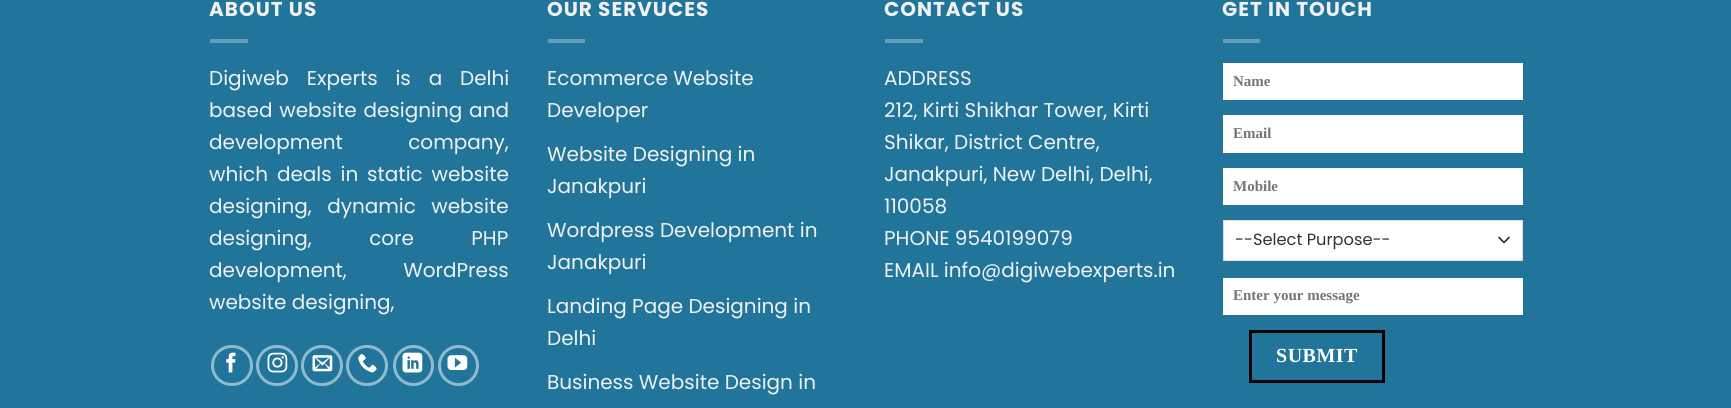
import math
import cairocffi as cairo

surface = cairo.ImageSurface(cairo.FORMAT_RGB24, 1731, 408)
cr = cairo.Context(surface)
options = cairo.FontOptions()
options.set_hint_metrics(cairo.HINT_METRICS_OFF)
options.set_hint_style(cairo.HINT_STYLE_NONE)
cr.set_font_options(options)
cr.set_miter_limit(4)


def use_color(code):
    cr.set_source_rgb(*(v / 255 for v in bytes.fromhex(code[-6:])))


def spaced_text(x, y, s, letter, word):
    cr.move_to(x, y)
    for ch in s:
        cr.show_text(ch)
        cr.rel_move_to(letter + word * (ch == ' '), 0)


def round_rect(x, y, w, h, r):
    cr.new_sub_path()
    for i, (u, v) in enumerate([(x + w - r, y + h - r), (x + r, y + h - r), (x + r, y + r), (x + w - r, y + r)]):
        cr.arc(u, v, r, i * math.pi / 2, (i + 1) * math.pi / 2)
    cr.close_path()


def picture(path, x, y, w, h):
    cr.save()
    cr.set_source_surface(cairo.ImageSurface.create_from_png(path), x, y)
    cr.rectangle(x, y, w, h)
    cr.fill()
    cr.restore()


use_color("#21759b")
cr.paint()
cr.select_font_face("Poppins", cairo.FONT_SLANT_NORMAL, cairo.FONT_WEIGHT_BOLD)
cr.set_font_size(20)
use_color("#f1f1f1")
spaced_text(209, 16, "ABOUT US", 1, 0)
use_color("#649eb9")
cr.rectangle(210, 39, 38, 4)
cr.fill()
cr.select_font_face("Poppins")
use_color("#f1f1f1")
spaced_text(209, 85, "Digiweb Experts is a Delhi", 0, 12.5)
spaced_text(209, 117, "based website designing and", 0, 1.5)
spaced_text(209, 149, "development company,", 0, 60)
spaced_text(209, 181, "which deals in static website", 0, 3.5)
spaced_text(209, 213, "designing, dynamic website", 0, 10)
spaced_text(209, 245, "designing, core PHP", 0, 52)
spaced_text(209, 277, "development, WordPress", 0, 51)
cr.move_to(209, 309)
cr.show_text("website designing,")
round_rect(212.5, 346.5, 39, 38, 19)
use_color("#90bacd")
cr.set_line_width(3)
cr.stroke()
picture("img1.png", 226, 352, 10, 21)
round_rect(257.5, 346.5, 39, 38, 19)
cr.stroke()
picture("img2.png", 267, 352, 21, 21)
round_rect(302.5, 346.5, 39, 38, 19)
cr.stroke()
picture("img3.png", 312, 355, 21, 17)
round_rect(347.5, 346.5, 39, 38, 19)
cr.stroke()
picture("img4.png", 358, 354, 19, 19)
cr.arc(413.5, 365.5, 19, 0, 2 * math.pi)
cr.stroke()
picture("img5.png", 402, 352, 21, 21)
cr.arc(458.5, 365.5, 19, 0, 2 * math.pi)
cr.stroke()
picture("img6.png", 447, 355, 21, 15)
cr.select_font_face("Poppins", cairo.FONT_SLANT_NORMAL, cairo.FONT_WEIGHT_BOLD)
use_color("#f1f1f1")
spaced_text(547, 16, "OUR SERVUCES", 1, 0)
use_color("#649eb9")
cr.rectangle(548, 39, 37, 4)
cr.fill()
cr.select_font_face("Poppins")
use_color("#f1f1f1")
cr.move_to(547, 85)
cr.show_text("Ecommerce Website")
cr.move_to(547, 117)
cr.show_text("Developer")
cr.move_to(547, 161)
cr.show_text("Website Designing in")
cr.move_to(547, 193)
cr.show_text("Janakpuri")
cr.move_to(547, 237)
cr.show_text("Wordpress Development in")
cr.move_to(547, 269)
cr.show_text("Janakpuri")
cr.move_to(547, 313)
cr.show_text("Landing Page Designing in")
cr.move_to(547, 345)
cr.show_text("Delhi")
cr.move_to(547, 389)
cr.show_text("Business Website Design in")
cr.select_font_face("Poppins", cairo.FONT_SLANT_NORMAL, cairo.FONT_WEIGHT_BOLD)
spaced_text(884, 16, "CONTACT US", 1, 0)
use_color("#649eb9")
cr.rectangle(885, 39, 38, 4)
cr.fill()
cr.select_font_face("Poppins")
use_color("#f1f1f1")
cr.move_to(884, 85)
cr.show_text("ADDRESS")
cr.move_to(884, 117)
cr.show_text("212, Kirti Shikhar Tower, Kirti")
cr.move_to(884, 149)
cr.show_text("Shikar, District Centre,")
cr.move_to(884, 181)
cr.show_text("Janakpuri, New Delhi, Delhi,")
cr.move_to(884, 213)
cr.show_text("110058")
cr.move_to(884, 245)
cr.show_text("PHONE 9540199079")
cr.move_to(884, 277)
cr.show_text("EMAIL info@digiwebexperts.in")
cr.select_font_face("Poppins", cairo.FONT_SLANT_NORMAL, cairo.FONT_WEIGHT_BOLD)
spaced_text(1222, 16, "GET IN TOUCH", 1, 0)
use_color("#649eb9")
cr.rectangle(1223, 39, 37, 4)
cr.fill()
use_color("#ffffff")
cr.rectangle(1223, 63, 300, 37)
cr.fill()
cr.select_font_face("Liberation Serif", cairo.FONT_SLANT_NORMAL, cairo.FONT_WEIGHT_BOLD)
cr.set_font_size(15)
use_color("#757575")
cr.move_to(1233, 86)
cr.show_text("Name")
use_color("#ffffff")
cr.rectangle(1223, 115, 300, 38)
cr.fill()
use_color("#757575")
cr.move_to(1233, 138)
cr.show_text("Email")
use_color("#ffffff")
cr.rectangle(1223, 168, 300, 37)
cr.fill()
use_color("#757575")
cr.move_to(1233, 191)
cr.show_text("Mobile")
use_color("#ffffff")
cr.rectangle(1224, 221, 298, 39)
cr.fill()
cr.new_path()
cr.move_to(1499, 237.5)
cr.line_to(1504, 242.5)
cr.line_to(1509, 237.5)
use_color("#333333")
cr.set_line_width(1.7)
cr.set_line_cap(cairo.LINE_CAP_ROUND)
cr.set_line_join(cairo.LINE_JOIN_ROUND)
cr.stroke()
cr.rectangle(1223.5, 220.5, 299, 40)
use_color("#dddddd")
cr.set_line_width(1)
cr.set_line_cap(cairo.LINE_CAP_BUTT)
cr.set_line_join(cairo.LINE_JOIN_MITER)
cr.stroke()
cr.select_font_face("Poppins")
cr.set_font_size(16.25)
use_color("#333333")
cr.move_to(1235, 245)
cr.show_text("--Select Purpose--")
use_color("#ffffff")
cr.rectangle(1223, 278, 300, 37)
cr.fill()
cr.select_font_face("Liberation Serif", cairo.FONT_SLANT_NORMAL, cairo.FONT_WEIGHT_BOLD)
cr.set_font_size(15)
use_color("#757575")
cr.move_to(1233, 300)
cr.show_text("Enter your message")
cr.rectangle(1250.5, 331.5, 133, 50)
use_color("#000000")
cr.set_line_width(3)
cr.stroke()
cr.set_font_size(20)
use_color("#ffffff")
spaced_text(1276, 362, "SUBMIT", 0.5, 0)
surface.write_to_png("result.png")
